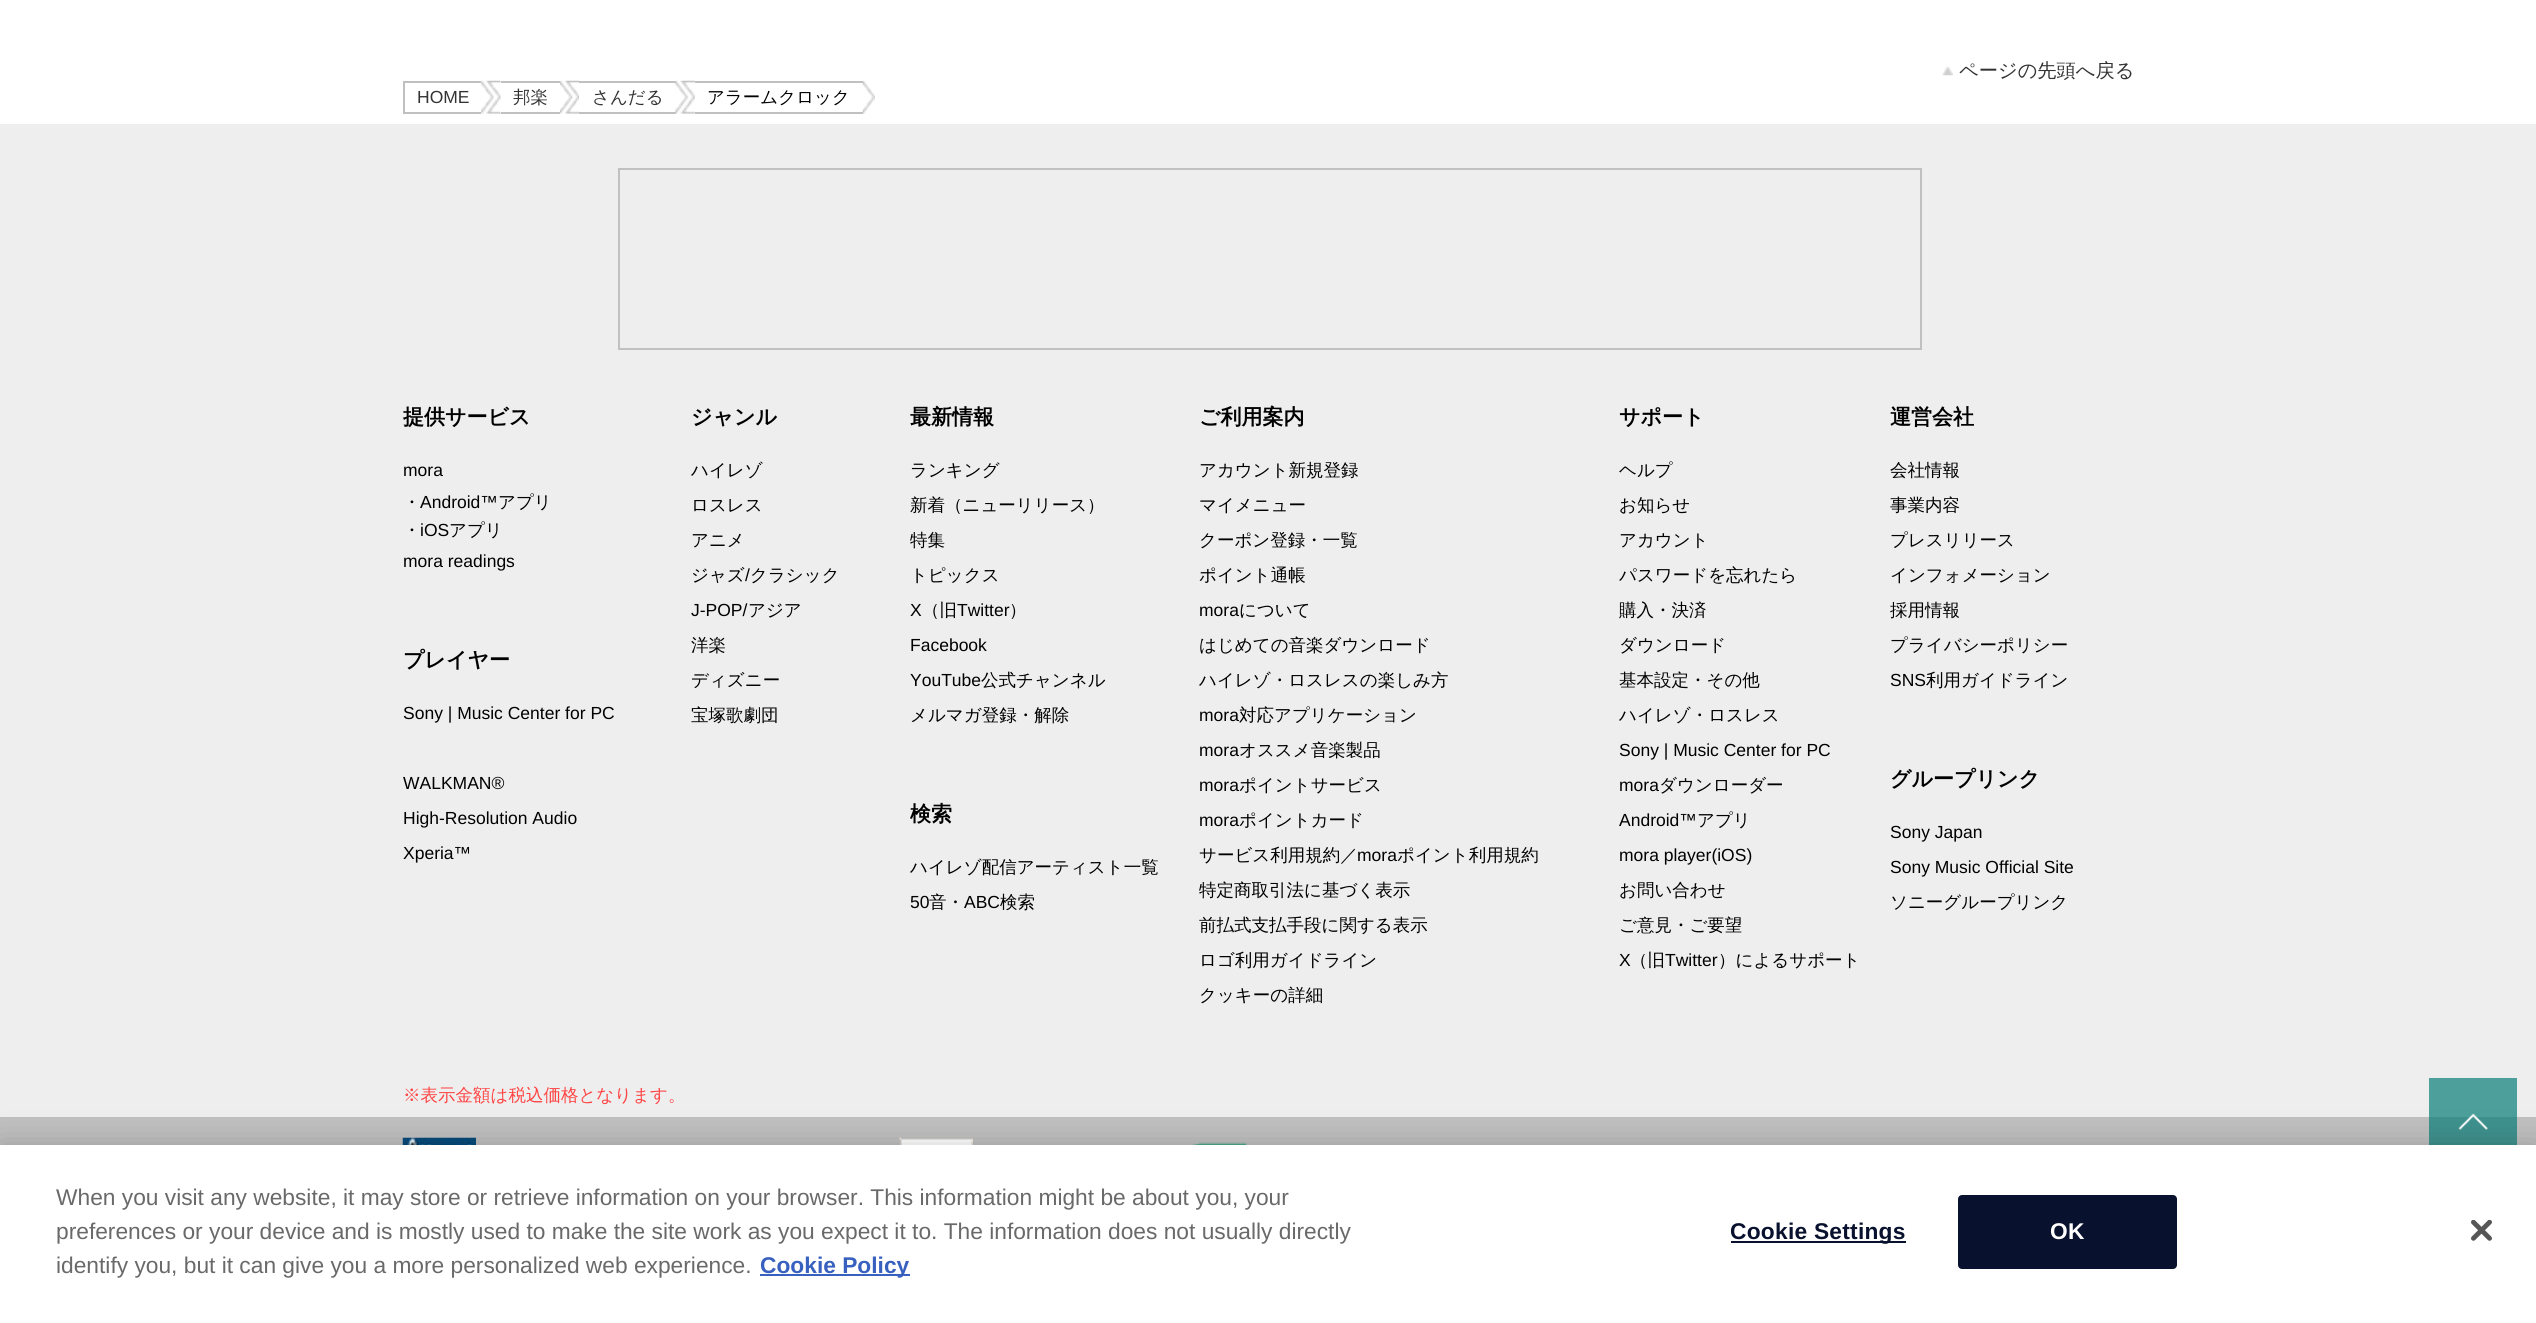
import math
import cairocffi as cairo

surface = cairo.ImageSurface(cairo.FORMAT_RGB24, 2536, 1323)
cr = cairo.Context(surface)
options = cairo.FontOptions()
options.set_hint_metrics(cairo.HINT_METRICS_OFF)
options.set_hint_style(cairo.HINT_STYLE_NONE)
cr.set_font_options(options)
cr.set_miter_limit(4)


def use_color(code):
    cr.set_source_rgb(*(v / 255 for v in bytes.fromhex(code[-6:])))


def spaced_text(x, y, s, letter, word):
    cr.move_to(x, y)
    for ch in s:
        cr.show_text(ch)
        cr.rel_move_to(letter + word * (ch == ' '), 0)


def round_rect(x, y, w, h, r):
    cr.new_sub_path()
    for i, (u, v) in enumerate([(x + w - r, y + h - r), (x + r, y + h - r), (x + r, y + r), (x + w - r, y + r)]):
        cr.arc(u, v, r, i * math.pi / 2, (i + 1) * math.pi / 2)
    cr.close_path()


def shadow(x, y, w, h, r, blur, alpha):
    cr.push_group_with_content(cairo.CONTENT_ALPHA)
    cr.set_operator(cairo.OPERATOR_SOURCE)
    for i in range(15, -16, -2):
        e = blur * i / 6
        if min(w, h) + 2 * e > 0:
            cr.set_source_rgba(0, 0, 0, alpha * math.erfc((i - 1) / 8.5) / 2)
            round_rect(x - e, y - e, w + 2 * e, h + 2 * e, max(0, min(r + e + blur * .6, min(w, h) / 2 + e)))
            cr.fill()
    cr.mask(cr.pop_group())


def picture(path, x, y, w, h):
    cr.save()
    cr.set_source_surface(cairo.ImageSurface.create_from_png(path), x, y)
    cr.rectangle(x, y, w, h)
    cr.fill()
    cr.restore()


use_color("#ffffff")
cr.paint()
picture("img1.png", 1942, 66, 11, 10)
cr.select_font_face("WenQuanYi Zen Hei Medium")
cr.set_font_size(19.25)
use_color("#333333")
cr.move_to(1959, 77)
cr.show_text("ページの先頭へ戻る")
use_color("#c0c0c0")
cr.rectangle(403, 81, 78, 2)
cr.fill()
cr.rectangle(403, 112, 78, 2)
cr.fill()
cr.rectangle(403, 81, 2, 33)
cr.fill()
cr.select_font_face("Liberation Sans")
cr.set_font_size(17.5)
use_color("#333333")
cr.move_to(417, 103)
cr.show_text("HOME")
picture("img2.png", 481, 80, 20, 34)
use_color("#c0c0c0")
cr.rectangle(501, 81, 59, 2)
cr.fill()
cr.rectangle(501, 112, 59, 2)
cr.fill()
cr.select_font_face("WenQuanYi Zen Hei Medium")
use_color("#333333")
cr.move_to(513, 103)
cr.show_text("邦楽")
picture("img3.png", 560, 80, 20, 34)
use_color("#ffffff")
cr.rectangle(579, 94, 1, 6)
cr.fill()
use_color("#c0c0c0")
cr.rectangle(579, 81, 97, 2)
cr.fill()
cr.rectangle(579, 112, 97, 2)
cr.fill()
use_color("#333333")
cr.move_to(592, 103)
cr.show_text("さんだる")
picture("img4.png", 675, 80, 20, 34)
use_color("#c0c0c0")
cr.rectangle(695, 81, 168, 2)
cr.fill()
cr.rectangle(695, 112, 168, 2)
cr.fill()
use_color("#000000")
cr.move_to(707, 103)
cr.show_text("アラームクロック")
picture("img5.png", 862, 80, 13, 34)
use_color("#eeeeee")
cr.rectangle(0, 124, 2536, 993)
cr.fill()
use_color("#4c9f9b")
cr.rectangle(2429, 1078, 88, 39)
cr.fill()
cr.rectangle(619, 169, 1302, 180)
use_color("#c0c0c0")
cr.stroke()
cr.select_font_face("WenQuanYi Zen Hei", cairo.FONT_SLANT_NORMAL, cairo.FONT_WEIGHT_BOLD)
cr.set_font_size(21)
use_color("#000000")
cr.move_to(403, 424)
cr.show_text("提供サービス")
cr.select_font_face("Liberation Sans")
cr.set_font_size(17.5)
cr.move_to(403, 476)
cr.show_text("mora")
cr.select_font_face("WenQuanYi Zen Hei Medium")
cr.move_to(403, 508)
cr.show_text("・")
cr.select_font_face("Liberation Sans")
cr.move_to(420, 508)
cr.show_text("Android™")
cr.select_font_face("WenQuanYi Zen Hei Medium")
cr.move_to(498, 508)
cr.show_text("アプリ")
cr.move_to(403, 536)
cr.show_text("・")
cr.select_font_face("Liberation Sans")
cr.move_to(420, 536)
cr.show_text("iOS")
cr.select_font_face("WenQuanYi Zen Hei Medium")
cr.move_to(449, 536)
cr.show_text("アプリ")
cr.select_font_face("Liberation Sans")
cr.move_to(403, 567)
cr.show_text("mora readings")
cr.select_font_face("WenQuanYi Zen Hei", cairo.FONT_SLANT_NORMAL, cairo.FONT_WEIGHT_BOLD)
cr.set_font_size(21)
cr.move_to(403, 667)
cr.show_text("プレイヤー")
cr.select_font_face("Liberation Sans")
cr.set_font_size(17.5)
cr.move_to(403, 719)
cr.show_text("Sony | Music Center for PC")
cr.move_to(403, 789)
cr.show_text("WALKMAN®")
cr.move_to(403, 824)
cr.show_text("High-Resolution Audio")
cr.move_to(403, 859)
cr.show_text("Xperia™")
cr.select_font_face("WenQuanYi Zen Hei", cairo.FONT_SLANT_NORMAL, cairo.FONT_WEIGHT_BOLD)
cr.set_font_size(21)
cr.move_to(691, 424)
cr.show_text("ジャンル")
cr.select_font_face("WenQuanYi Zen Hei Medium")
cr.set_font_size(17.5)
cr.move_to(691, 476)
cr.show_text("ハイレゾ")
cr.move_to(691, 511)
cr.show_text("ロスレス")
cr.move_to(691, 546)
cr.show_text("アニメ")
cr.move_to(691, 581)
cr.show_text("ジャズ")
cr.select_font_face("Liberation Sans")
cr.move_to(745, 581)
cr.show_text("/")
cr.select_font_face("WenQuanYi Zen Hei Medium")
cr.move_to(750, 581)
cr.show_text("クラシック")
cr.select_font_face("Liberation Sans")
cr.move_to(691, 616)
cr.show_text("J-POP/")
cr.select_font_face("WenQuanYi Zen Hei Medium")
cr.move_to(748, 616)
cr.show_text("アジア")
cr.move_to(691, 651)
cr.show_text("洋楽")
cr.move_to(691, 686)
cr.show_text("ディズニー")
cr.move_to(691, 721)
cr.show_text("宝塚歌劇団")
cr.select_font_face("WenQuanYi Zen Hei", cairo.FONT_SLANT_NORMAL, cairo.FONT_WEIGHT_BOLD)
cr.set_font_size(21)
cr.move_to(910, 424)
cr.show_text("最新情報")
cr.select_font_face("WenQuanYi Zen Hei Medium")
cr.set_font_size(17.5)
cr.move_to(910, 476)
cr.show_text("ランキング")
cr.move_to(910, 511)
cr.show_text("新着（ニューリリース）")
cr.move_to(910, 546)
cr.show_text("特集")
cr.move_to(910, 581)
cr.show_text("トピックス")
cr.select_font_face("Liberation Sans")
cr.move_to(910, 616)
cr.show_text("X")
cr.select_font_face("WenQuanYi Zen Hei Medium")
cr.move_to(922, 616)
cr.show_text("（旧")
cr.select_font_face("Liberation Sans")
cr.move_to(957, 616)
cr.show_text("Twitter")
cr.select_font_face("WenQuanYi Zen Hei Medium")
cr.move_to(1009, 616)
cr.show_text("）")
cr.select_font_face("Liberation Sans")
cr.move_to(910, 651)
cr.show_text("Facebook")
cr.move_to(910, 686)
cr.show_text("YouTube")
cr.select_font_face("WenQuanYi Zen Hei Medium")
cr.move_to(981, 686)
cr.show_text("公式チャンネル")
cr.move_to(910, 721)
cr.show_text("メルマガ登録・解除")
cr.select_font_face("WenQuanYi Zen Hei", cairo.FONT_SLANT_NORMAL, cairo.FONT_WEIGHT_BOLD)
cr.set_font_size(21)
cr.move_to(910, 821)
cr.show_text("検索")
cr.select_font_face("WenQuanYi Zen Hei Medium")
cr.set_font_size(17.5)
cr.move_to(910, 873)
cr.show_text("ハイレゾ配信アーティスト一覧")
cr.select_font_face("Liberation Sans")
cr.move_to(910, 908)
cr.show_text("50")
cr.select_font_face("WenQuanYi Zen Hei Medium")
cr.move_to(929, 908)
cr.show_text("音・")
cr.select_font_face("Liberation Sans")
cr.move_to(964, 908)
cr.show_text("ABC")
cr.select_font_face("WenQuanYi Zen Hei Medium")
cr.move_to(1000, 908)
cr.show_text("検索")
cr.select_font_face("WenQuanYi Zen Hei", cairo.FONT_SLANT_NORMAL, cairo.FONT_WEIGHT_BOLD)
cr.set_font_size(21)
cr.move_to(1199, 424)
cr.show_text("ご利用案内")
cr.select_font_face("WenQuanYi Zen Hei Medium")
cr.set_font_size(17.5)
cr.move_to(1199, 476)
cr.show_text("アカウント新規登録")
cr.move_to(1199, 511)
cr.show_text("マイメニュー")
cr.move_to(1199, 546)
cr.show_text("クーポン登録・一覧")
cr.move_to(1199, 581)
cr.show_text("ポイント通帳")
cr.select_font_face("Liberation Sans")
cr.move_to(1199, 616)
cr.show_text("mora")
cr.select_font_face("WenQuanYi Zen Hei Medium")
cr.move_to(1239, 616)
cr.show_text("について")
cr.move_to(1199, 651)
cr.show_text("はじめての音楽ダウンロード")
cr.move_to(1199, 686)
cr.show_text("ハイレゾ・ロスレスの楽しみ方")
cr.select_font_face("Liberation Sans")
cr.move_to(1199, 721)
cr.show_text("mora")
cr.select_font_face("WenQuanYi Zen Hei Medium")
cr.move_to(1239, 721)
cr.show_text("対応アプリケーション")
cr.select_font_face("Liberation Sans")
cr.move_to(1199, 756)
cr.show_text("mora")
cr.select_font_face("WenQuanYi Zen Hei Medium")
cr.move_to(1239, 756)
cr.show_text("オススメ音楽製品")
cr.select_font_face("Liberation Sans")
cr.move_to(1199, 791)
cr.show_text("mora")
cr.select_font_face("WenQuanYi Zen Hei Medium")
cr.move_to(1239, 791)
cr.show_text("ポイントサービス")
cr.select_font_face("Liberation Sans")
cr.move_to(1199, 826)
cr.show_text("mora")
cr.select_font_face("WenQuanYi Zen Hei Medium")
cr.move_to(1239, 826)
cr.show_text("ポイントカード")
cr.move_to(1199, 861)
cr.show_text("サービス利用規約／")
cr.select_font_face("Liberation Sans")
cr.move_to(1357, 861)
cr.show_text("mora")
cr.select_font_face("WenQuanYi Zen Hei Medium")
cr.move_to(1397, 861)
cr.show_text("ポイント利用規約")
cr.move_to(1199, 896)
cr.show_text("特定商取引法に基づく表示")
cr.move_to(1199, 931)
cr.show_text("前払式支払手段に関する表示")
cr.move_to(1199, 966)
cr.show_text("ロゴ利用ガイドライン")
cr.move_to(1199, 1001)
cr.show_text("クッキーの詳細")
cr.select_font_face("WenQuanYi Zen Hei", cairo.FONT_SLANT_NORMAL, cairo.FONT_WEIGHT_BOLD)
cr.set_font_size(21)
cr.move_to(1619, 424)
cr.show_text("サポート")
cr.select_font_face("WenQuanYi Zen Hei Medium")
cr.set_font_size(17.5)
cr.move_to(1619, 476)
cr.show_text("ヘルプ")
cr.move_to(1619, 511)
cr.show_text("お知らせ")
cr.move_to(1619, 546)
cr.show_text("アカウント")
cr.move_to(1619, 581)
cr.show_text("パスワードを忘れたら")
cr.move_to(1619, 616)
cr.show_text("購入・決済")
cr.move_to(1619, 651)
cr.show_text("ダウンロード")
cr.move_to(1619, 686)
cr.show_text("基本設定・その他")
cr.move_to(1619, 721)
cr.show_text("ハイレゾ・ロスレス")
cr.select_font_face("Liberation Sans")
cr.move_to(1619, 756)
cr.show_text("Sony | Music Center for PC")
cr.move_to(1619, 791)
cr.show_text("mora")
cr.select_font_face("WenQuanYi Zen Hei Medium")
cr.move_to(1659, 791)
cr.show_text("ダウンローダー")
cr.select_font_face("Liberation Sans")
cr.move_to(1619, 826)
cr.show_text("Android™")
cr.select_font_face("WenQuanYi Zen Hei Medium")
cr.move_to(1697, 826)
cr.show_text("アプリ")
cr.select_font_face("Liberation Sans")
cr.move_to(1619, 861)
cr.show_text("mora player(iOS)")
cr.select_font_face("WenQuanYi Zen Hei Medium")
cr.move_to(1619, 896)
cr.show_text("お問い合わせ")
cr.move_to(1619, 931)
cr.show_text("ご意見・ご要望")
cr.select_font_face("Liberation Sans")
cr.move_to(1619, 966)
cr.show_text("X")
cr.select_font_face("WenQuanYi Zen Hei Medium")
cr.move_to(1630, 966)
cr.show_text("（旧")
cr.select_font_face("Liberation Sans")
cr.move_to(1665, 966)
cr.show_text("Twitter")
cr.select_font_face("WenQuanYi Zen Hei Medium")
cr.move_to(1718, 966)
cr.show_text("）によるサポート")
cr.select_font_face("WenQuanYi Zen Hei", cairo.FONT_SLANT_NORMAL, cairo.FONT_WEIGHT_BOLD)
cr.set_font_size(21)
cr.move_to(1890, 424)
cr.show_text("運営会社")
cr.select_font_face("WenQuanYi Zen Hei Medium")
cr.set_font_size(17.5)
cr.move_to(1890, 476)
cr.show_text("会社情報")
cr.move_to(1890, 511)
cr.show_text("事業内容")
cr.move_to(1890, 546)
cr.show_text("プレスリリース")
cr.move_to(1890, 581)
cr.show_text("インフォメーション")
cr.move_to(1890, 616)
cr.show_text("採用情報")
cr.move_to(1890, 651)
cr.show_text("プライバシーポリシー")
cr.select_font_face("Liberation Sans")
cr.move_to(1890, 686)
cr.show_text("SNS")
cr.select_font_face("WenQuanYi Zen Hei Medium")
cr.move_to(1926, 686)
cr.show_text("利用ガイドライン")
cr.select_font_face("WenQuanYi Zen Hei", cairo.FONT_SLANT_NORMAL, cairo.FONT_WEIGHT_BOLD)
cr.set_font_size(21)
cr.move_to(1890, 786)
cr.show_text("グループリンク")
cr.select_font_face("Liberation Sans")
cr.set_font_size(17.5)
cr.move_to(1890, 838)
cr.show_text("Sony Japan")
cr.move_to(1890, 873)
cr.show_text("Sony Music Official Site")
cr.select_font_face("WenQuanYi Zen Hei Medium")
cr.move_to(1890, 908)
cr.show_text("ソニーグループリンク")
use_color("#ff4444")
cr.move_to(403, 1101)
cr.show_text("※表示金額は税込価格となります。")
use_color("#c0c0c0")
cr.rectangle(0, 1117, 2536, 28)
cr.fill()
use_color("#3e918e")
cr.rectangle(2429, 1117, 88, 28)
cr.fill()
picture("img6.png", 402, 1137, 74, 8)
picture("img7.png", 899, 1137, 74, 8)
picture("img8.png", 1192, 1142, 55, 3)
picture("img9.png", 2458, 1113, 30, 17)
use_color("#000000")
shadow(0, 1145, 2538, 178, 0, 16, 0.2)
use_color("#ffffff")
cr.rectangle(0, 1145, 2536, 178)
cr.fill()
cr.select_font_face("Liberation Sans")
cr.set_font_size(22.75)
use_color("#696969")
cr.move_to(56, 1205)
cr.show_text("When you visit any website, it may store or retrieve information on your browser. This information might be about you, your")
cr.move_to(56, 1239)
cr.show_text("preferences or your device and is mostly used to make the site work as you expect it to. The information does not usually directly")
cr.move_to(56, 1273)
cr.show_text("identify you, but it can give you a more personalized web experience.")
use_color("#3860be")
cr.rectangle(760, 1274, 150, 2)
cr.fill()
cr.select_font_face("Liberation Sans", cairo.FONT_SLANT_NORMAL, cairo.FONT_WEIGHT_BOLD)
cr.move_to(760, 1273)
cr.show_text("Cookie Policy")
use_color("#08112e")
cr.rectangle(1731, 1241, 175, 2)
cr.fill()
spaced_text(1730, 1239, "Cookie Settings", 0.25, 0)
round_rect(1959, 1196, 217, 72, 3)
cr.fill_preserve()
cr.stroke()
use_color("#ffffff")
spaced_text(2050, 1239, "OK", 0.25, 0)
picture("img10.png", 2471, 1220, 21, 21)
surface.write_to_png("result.png")
